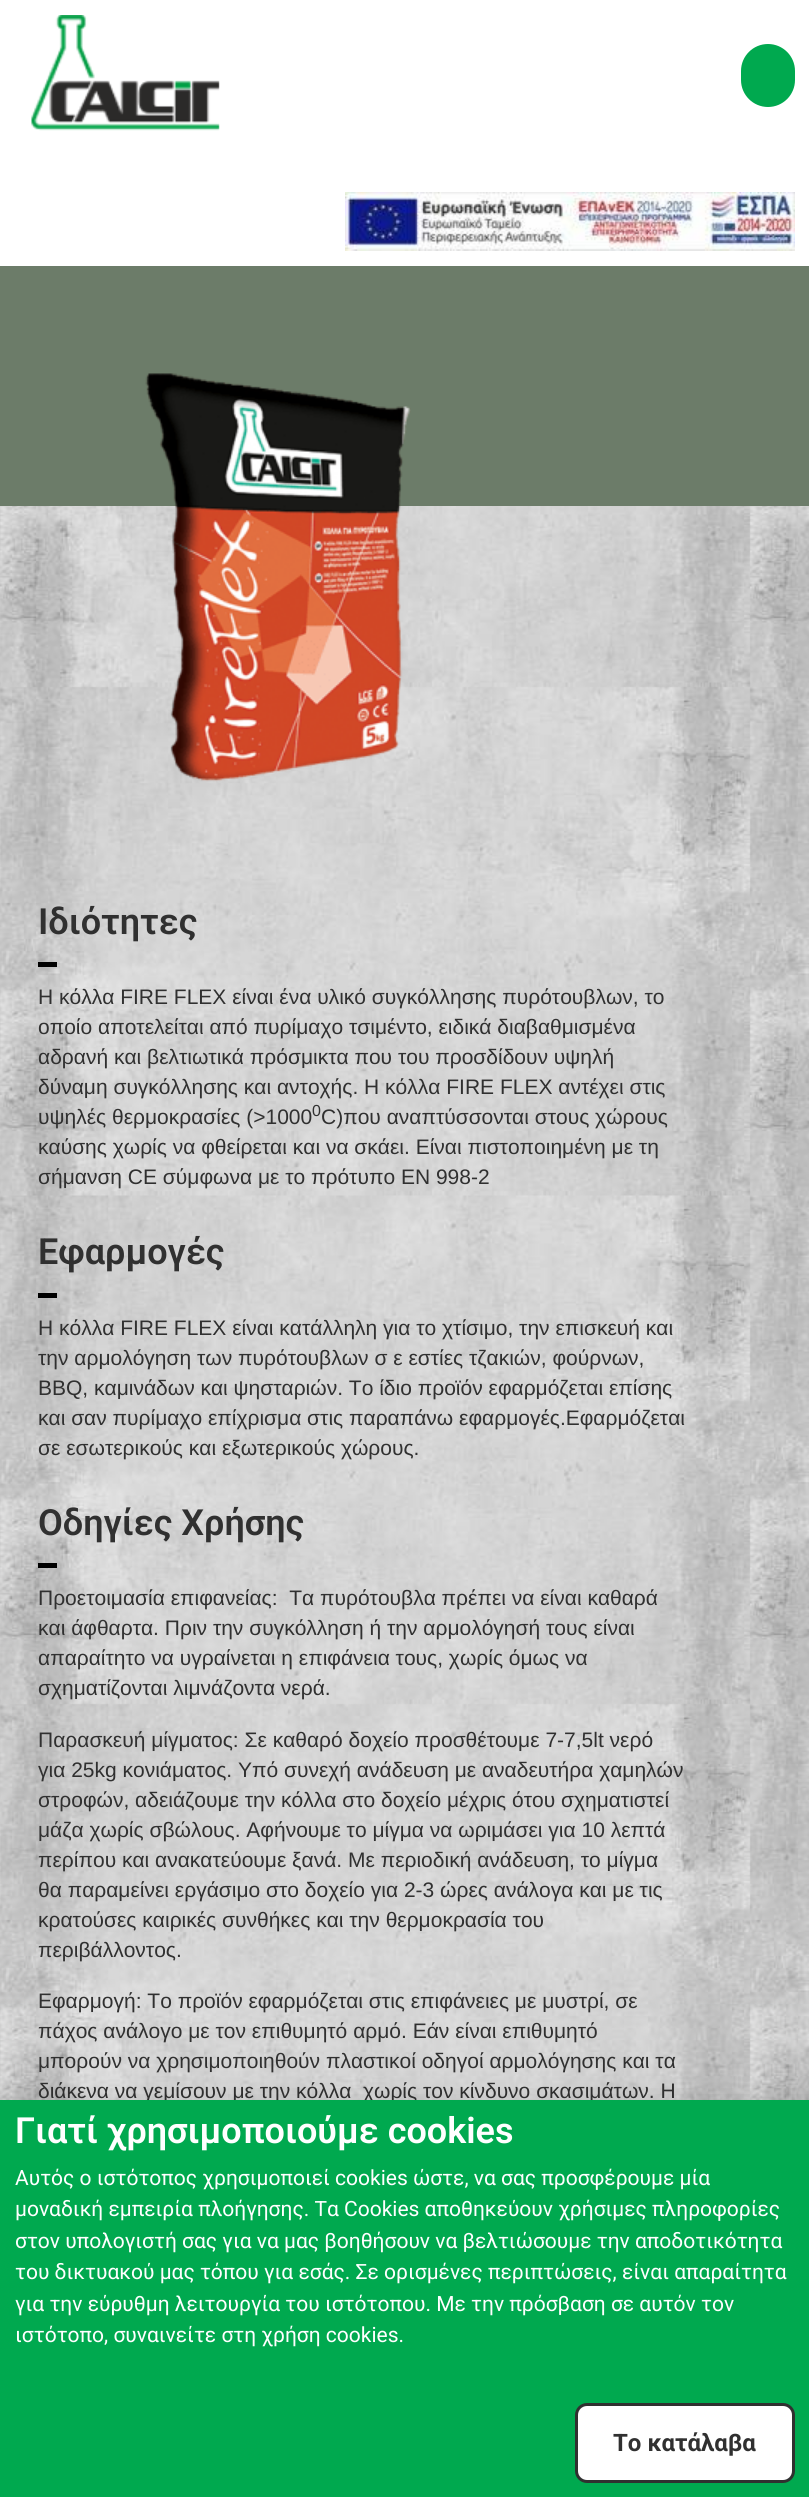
import math
import cairocffi as cairo

surface = cairo.ImageSurface(cairo.FORMAT_RGB24, 809, 2497)
cr = cairo.Context(surface)
options = cairo.FontOptions()
options.set_hint_metrics(cairo.HINT_METRICS_OFF)
options.set_hint_style(cairo.HINT_STYLE_NONE)
cr.set_font_options(options)
cr.set_miter_limit(4)


def use_color(code):
    cr.set_source_rgb(*(v / 255 for v in bytes.fromhex(code[-6:])))


def round_rect(x, y, w, h, r):
    cr.new_sub_path()
    for i, (u, v) in enumerate([(x + w - r, y + h - r), (x + r, y + h - r), (x + r, y + r), (x + w - r, y + r)]):
        cr.arc(u, v, r, i * math.pi / 2, (i + 1) * math.pi / 2)
    cr.close_path()


def shadow(x, y, w, h, r, blur, alpha):
    cr.push_group_with_content(cairo.CONTENT_ALPHA)
    cr.set_operator(cairo.OPERATOR_SOURCE)
    for i in range(15, -16, -2):
        e = blur * i / 6
        if min(w, h) + 2 * e > 0:
            cr.set_source_rgba(0, 0, 0, alpha * math.erfc((i - 1) / 8.5) / 2)
            round_rect(x - e, y - e, w + 2 * e, h + 2 * e, max(0, min(r + e + blur * .6, min(w, h) / 2 + e)))
            cr.fill()
    cr.mask(cr.pop_group())


def picture(path, x, y, w, h):
    cr.save()
    cr.set_source_surface(cairo.ImageSurface.create_from_png(path), x, y)
    cr.rectangle(x, y, w, h)
    cr.fill()
    cr.restore()


use_color("#ffffff")
cr.paint()
picture("img1.png", 0, 506, 809, 1594)
picture("img2.png", 31, 15, 189, 116)
use_color("#00a94f")
round_rect(741, 44, 54, 63, 27)
cr.fill()
picture("img3.png", 345, 192, 450, 59)
use_color("#6c7c69")
cr.rectangle(0, 266, 809, 240)
cr.fill()
picture("img4.png", 145, 373, 266, 409)
cr.select_font_face("Roboto SemiBold")
cr.set_font_size(36)
use_color("#303030")
cr.move_to(38, 934)
cr.show_text("Ιδιότητες")
use_color("#000000")
cr.rectangle(38, 962, 19, 5)
cr.fill()
cr.select_font_face("Liberation Sans")
cr.set_font_size(21)
use_color("#303030")
cr.move_to(38, 1004)
cr.show_text("Η κόλλα FIRE FLEX είναι ένα υλικό συγκόλλησης πυρότουβλων, το")
cr.move_to(38, 1034)
cr.show_text("οποίο αποτελείται από πυρίμαχο τσιμέντο, ειδικά διαβαθμισμένα")
cr.move_to(38, 1064)
cr.show_text("αδρανή και βελτιωτικά πρόσμικτα που του προσδίδουν υψηλή")
cr.move_to(38, 1094)
cr.show_text("δύναμη συγκόλλησης και αντοχής. Η κόλλα FIRE FLEX αντέχει στις")
cr.move_to(38, 1124)
cr.show_text("υψηλές θερμοκρασίες (>1000")
cr.set_font_size(16)
cr.move_to(312, 1116)
cr.show_text("0")
cr.set_font_size(21)
cr.move_to(321, 1124)
cr.show_text("C)που αναπτύσσονται στους χώρους")
cr.move_to(38, 1154)
cr.show_text("καύσης χωρίς να φθείρεται και να σκάει. Είναι πιστοποιημένη με τη")
cr.move_to(38, 1184)
cr.show_text("σήμανση CE σύμφωνα με το πρότυπο EN 998-2")
cr.select_font_face("Roboto SemiBold")
cr.set_font_size(36)
cr.move_to(38, 1264)
cr.show_text("Εφαρμογές")
use_color("#000000")
cr.rectangle(38, 1293, 19, 5)
cr.fill()
cr.select_font_face("Liberation Sans")
cr.set_font_size(21)
use_color("#303030")
cr.move_to(38, 1335)
cr.show_text("Η κόλλα FIRE FLEX είναι κατάλληλη για το χτίσιμο, την επισκευή και")
cr.move_to(38, 1365)
cr.show_text("την αρμολόγηση των πυρότουβλων σ ε εστίες τζακιών, φούρνων,")
cr.move_to(38, 1395)
cr.show_text("BBQ, καμινάδων και ψησταριών. Το ίδιο προϊόν εφαρμόζεται επίσης")
cr.move_to(38, 1425)
cr.show_text("και σαν πυρίμαχο επίχρισμα στις παραπάνω εφαρμογές.Εφαρμόζεται")
cr.move_to(38, 1455)
cr.show_text("σε εσωτερικούς και εξωτερικούς χώρους.")
cr.select_font_face("Roboto SemiBold")
cr.set_font_size(36)
cr.move_to(38, 1535)
cr.show_text("Οδηγίες Χρήσης")
use_color("#000000")
cr.rectangle(38, 1563, 19, 5)
cr.fill()
cr.select_font_face("Liberation Sans")
cr.set_font_size(21)
use_color("#303030")
cr.move_to(38, 1605)
cr.show_text("Προετοιμασία επιφανείας:  Τα πυρότουβλα πρέπει να είναι καθαρά")
cr.move_to(38, 1635)
cr.show_text("και άφθαρτα. Πριν την συγκόλληση ή την αρμολόγησή τους είναι")
cr.move_to(38, 1665)
cr.show_text("απαραίτητο να υγραίνεται η επιφάνεια τους, χωρίς όμως να")
cr.move_to(38, 1695)
cr.show_text("σχηματίζονται λιμνάζοντα νερά.")
cr.move_to(38, 1747)
cr.show_text("Παρασκευή μίγματος: Σε καθαρό δοχείο προσθέτουμε 7-7,5lt νερό")
cr.move_to(38, 1777)
cr.show_text("για 25kg κονιάματος. Υπό συνεχή ανάδευση με αναδευτήρα χαμηλών")
cr.move_to(38, 1807)
cr.show_text("στροφών, αδειάζουμε την κόλλα στο δοχείο μέχρις ότου σχηματιστεί")
cr.move_to(38, 1837)
cr.show_text("μάζα χωρίς σβώλους. Αφήνουμε το μίγμα να ωριμάσει για 10 λεπτά")
cr.move_to(38, 1867)
cr.show_text("περίπου και ανακατεύουμε ξανά. Με περιοδική ανάδευση, το μίγμα")
cr.move_to(38, 1897)
cr.show_text("θα παραμείνει εργάσιμο στο δοχείο για 2-3 ώρες ανάλογα και με τις")
cr.move_to(38, 1927)
cr.show_text("κρατούσες καιρικές συνθήκες και την θερμοκρασία του")
cr.move_to(38, 1957)
cr.show_text("περιβάλλοντος.")
cr.move_to(38, 2008)
cr.show_text("Εφαρμογή: Το προϊόν εφαρμόζεται στις επιφάνειες με μυστρί, σε")
cr.move_to(38, 2038)
cr.show_text("πάχος ανάλογο με τον επιθυμητό αρμό. Εάν είναι επιθυμητό")
cr.move_to(38, 2068)
cr.show_text("μπορούν να χρησιμοποιηθούν πλαστικοί οδηγοί αρμολόγησης και τα")
cr.move_to(38, 2098)
cr.show_text("διάκενα να γεμίσουν με την κόλλα  χωρίς τον κίνδυνο σκασιμάτων. Η")
use_color("#000000")
shadow(-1, 2108, 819, 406, 0, 17, 0.2)
use_color("#00a94f")
cr.rectangle(0, 2100, 809, 397)
cr.fill()
cr.select_font_face("Roboto SemiBold")
cr.set_font_size(36)
use_color("#ffffff")
cr.move_to(15, 2143)
cr.show_text("Γιατί χρησιμοποιούμε cookies")
cr.select_font_face("Roboto")
cr.set_font_size(21)
cr.move_to(15, 2185)
cr.show_text("Αυτός ο ιστότοπος χρησιμοποιεί cookies ώστε, να σας προσφέρουμε μία")
cr.move_to(15, 2216)
cr.show_text("μοναδική εμπειρία πλοήγησης. Τα Cookies αποθηκεύουν χρήσιμες πληροφορίες")
cr.move_to(15, 2248)
cr.show_text("στον υπολογιστή σας για να μας βοηθήσουν να βελτιώσουμε την αποδοτικότητα")
cr.move_to(15, 2279)
cr.show_text("του δικτυακού μας τόπου για εσάς. Σε ορισμένες περιπτώσεις, είναι απαραίτητα")
cr.move_to(15, 2311)
cr.show_text("για την εύρυθμη λειτουργία του ιστότοπου. Με την πρόσβαση σε αυτόν τον")
cr.move_to(15, 2342)
cr.show_text("ιστότοπο, συναινείτε στη χρήση cookies.")
round_rect(576.5, 2404.5, 217, 77, 10.5)
cr.fill_preserve()
use_color("#303030")
cr.set_line_width(3)
cr.stroke()
cr.select_font_face("Roboto", cairo.FONT_SLANT_NORMAL, cairo.FONT_WEIGHT_BOLD)
cr.set_font_size(24)
cr.move_to(613, 2451)
cr.show_text("Το κατάλαβα")
surface.write_to_png("result.png")
